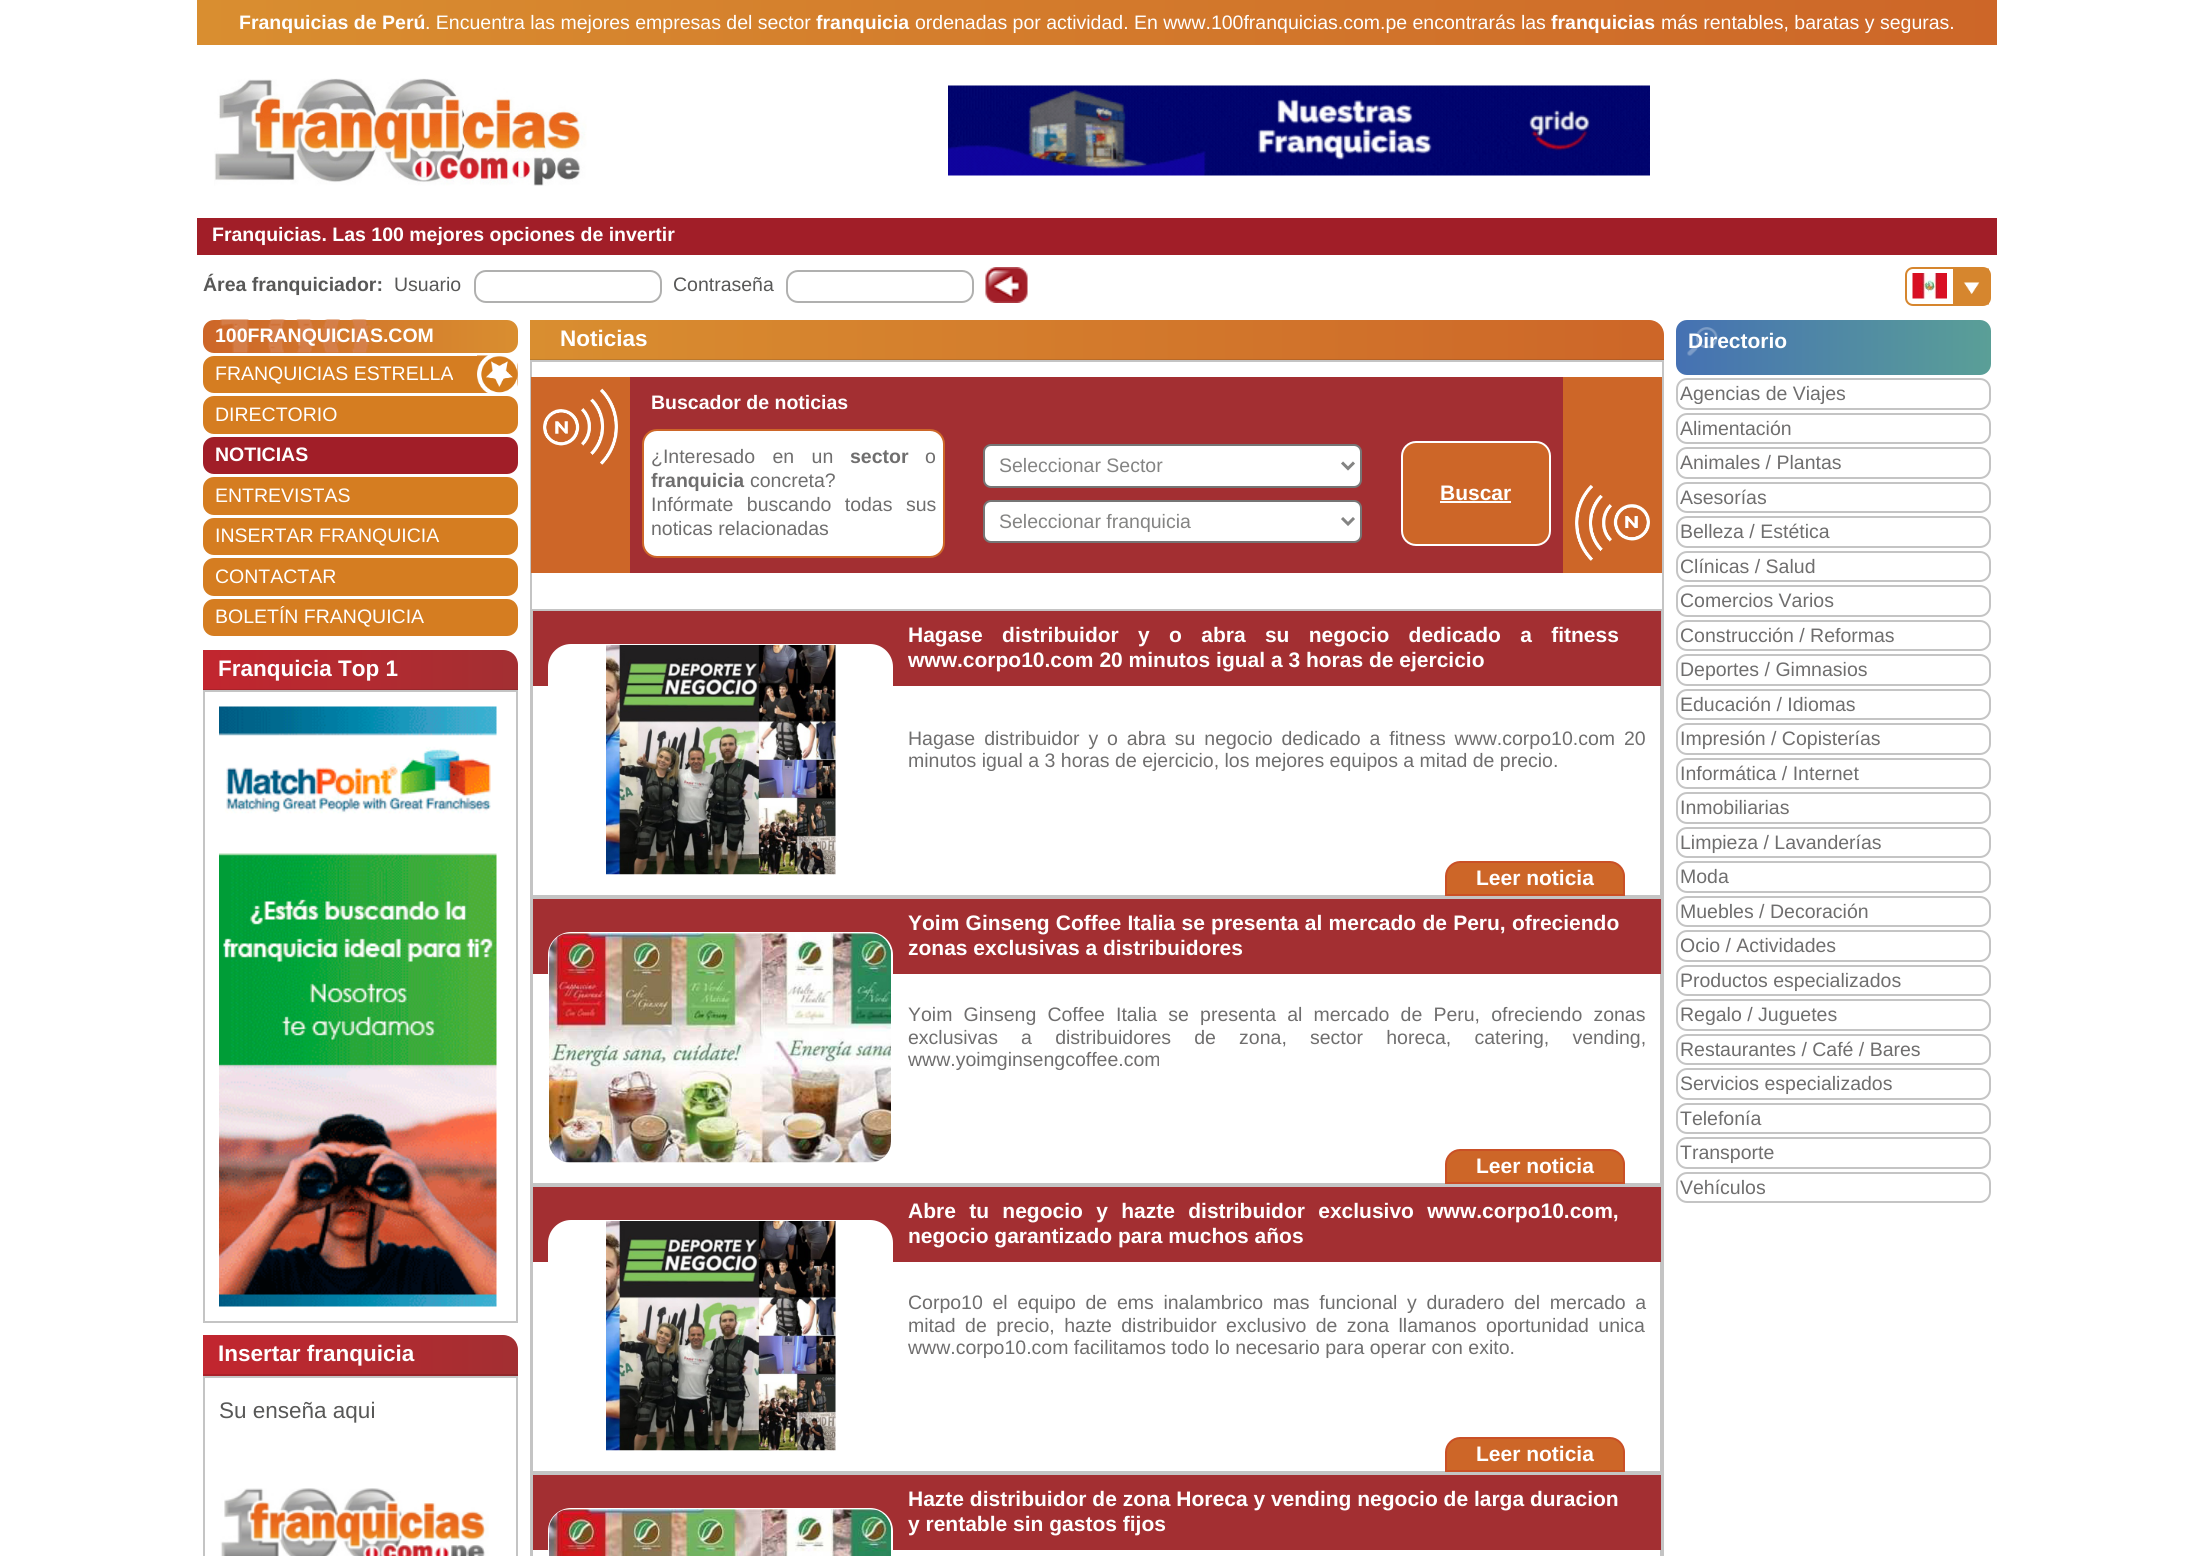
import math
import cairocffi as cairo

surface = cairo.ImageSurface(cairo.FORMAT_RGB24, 2192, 1556)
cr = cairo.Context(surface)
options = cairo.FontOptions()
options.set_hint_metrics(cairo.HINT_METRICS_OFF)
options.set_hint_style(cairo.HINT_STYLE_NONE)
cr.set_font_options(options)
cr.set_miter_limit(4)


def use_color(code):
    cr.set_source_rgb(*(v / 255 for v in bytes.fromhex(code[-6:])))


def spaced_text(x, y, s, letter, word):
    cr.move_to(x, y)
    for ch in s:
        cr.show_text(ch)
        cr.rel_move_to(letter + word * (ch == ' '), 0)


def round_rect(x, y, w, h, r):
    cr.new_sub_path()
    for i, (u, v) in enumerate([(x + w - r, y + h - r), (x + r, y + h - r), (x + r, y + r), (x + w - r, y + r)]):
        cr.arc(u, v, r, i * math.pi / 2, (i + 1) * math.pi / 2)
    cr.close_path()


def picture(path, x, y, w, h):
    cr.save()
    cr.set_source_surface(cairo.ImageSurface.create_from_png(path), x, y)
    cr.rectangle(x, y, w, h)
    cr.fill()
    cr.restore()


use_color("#ffffff")
cr.paint()
gradient = cairo.LinearGradient(197, 23, 1997, 22)
gradient.add_color_stop_rgba(0, 0.851, 0.557, 0.188, 1)
gradient.add_color_stop_rgba(1, 0.804, 0.4, 0.157, 1)
cr.set_source(gradient)
cr.rectangle(197, 0, 1800, 45)
cr.fill()
cr.select_font_face("Liberation Sans", cairo.FONT_SLANT_NORMAL, cairo.FONT_WEIGHT_BOLD)
cr.set_font_size(19.5)
use_color("#ffffff")
cr.move_to(239, 29)
cr.show_text("Franquicias de Perú")
cr.select_font_face("Liberation Sans")
cr.move_to(425, 29)
cr.show_text(". Encuentra las mejores empresas del sector")
cr.select_font_face("Liberation Sans", cairo.FONT_SLANT_NORMAL, cairo.FONT_WEIGHT_BOLD)
cr.move_to(816, 29)
cr.show_text("franquicia")
cr.select_font_face("Liberation Sans")
cr.move_to(915, 29)
cr.show_text("ordenadas por actividad. En www.100franquicias.com.pe encontrarás las")
cr.select_font_face("Liberation Sans", cairo.FONT_SLANT_NORMAL, cairo.FONT_WEIGHT_BOLD)
cr.move_to(1551, 29)
cr.show_text("franquicias")
cr.select_font_face("Liberation Sans")
cr.move_to(1661, 29)
cr.show_text("más rentables, baratas y seguras.")
picture("img1.png", 214, 78, 373, 108)
picture("img2.png", 948, 85, 702, 91)
use_color("#a11e28")
cr.rectangle(197, 218, 1800, 37)
cr.fill()
cr.select_font_face("Liberation Sans", cairo.FONT_SLANT_NORMAL, cairo.FONT_WEIGHT_BOLD)
use_color("#ffffff")
cr.move_to(212, 241)
cr.show_text("Franquicias. Las 100 mejores opciones de invertir")
round_rect(1906, 268, 84, 37, 7)
use_color("#d6862e")
cr.stroke()
picture("img3.png", 1912, 273, 35, 26)
picture("img4.png", 1953, 268, 36, 37)
use_color("#585857")
cr.move_to(203, 291)
cr.show_text("Área franquiciador:")
cr.select_font_face("Liberation Sans")
cr.move_to(394, 291)
cr.show_text("Usuario")
round_rect(475, 271, 186, 31, 11)
use_color("#b0b0af")
cr.stroke()
use_color("#585857")
cr.move_to(673, 291)
cr.show_text("Contraseña")
round_rect(787, 271, 186, 31, 11)
use_color("#b0b0af")
cr.stroke()
picture("img5.png", 985, 267, 43, 36)
gradient = cairo.LinearGradient(203, 336, 518, 336)
gradient.add_color_stop_rgba(0, 0.804, 0.4, 0.157, 1)
gradient.add_color_stop_rgba(1, 0.851, 0.557, 0.188, 1)
cr.set_source(gradient)
round_rect(203, 320, 315, 33, 11)
cr.fill()
picture("img6.png", 220, 319, 151, 34)
cr.select_font_face("Liberation Sans", cairo.FONT_SLANT_NORMAL, cairo.FONT_WEIGHT_BOLD)
use_color("#ffffff")
cr.move_to(215, 342)
cr.show_text("100FRANQUICIAS.COM")
use_color("#d57d21")
round_rect(203, 356, 315, 37, 11)
cr.fill()
picture("img7.png", 477, 355, 41, 38)
cr.select_font_face("Liberation Sans")
use_color("#ffffff")
cr.move_to(215, 380)
cr.show_text("FRANQUICIAS ESTRELLA")
use_color("#d57d21")
round_rect(203, 396, 315, 38, 11)
cr.fill()
use_color("#ffffff")
cr.move_to(215, 421)
cr.show_text("DIRECTORIO")
use_color("#a11e28")
round_rect(203, 437, 315, 37, 11)
cr.fill()
cr.select_font_face("Liberation Sans", cairo.FONT_SLANT_NORMAL, cairo.FONT_WEIGHT_BOLD)
use_color("#ffffff")
cr.move_to(215, 461)
cr.show_text("NOTICIAS")
use_color("#d57d21")
round_rect(203, 477, 315, 38, 11)
cr.fill()
cr.select_font_face("Liberation Sans")
use_color("#ffffff")
cr.move_to(215, 502)
cr.show_text("ENTREVISTAS")
use_color("#d57d21")
round_rect(203, 518, 315, 37, 11)
cr.fill()
use_color("#ffffff")
cr.move_to(215, 542)
cr.show_text("INSERTAR FRANQUICIA")
use_color("#d57d21")
round_rect(203, 558, 315, 38, 11)
cr.fill()
use_color("#ffffff")
cr.move_to(215, 583)
cr.show_text("CONTACTAR")
use_color("#d57d21")
round_rect(203, 599, 315, 37, 11)
cr.fill()
use_color("#ffffff")
cr.move_to(215, 623)
cr.show_text("BOLETÍN FRANQUICIA")
gradient = cairo.LinearGradient(203, 669, 518, 669)
gradient.add_color_stop_rgba(0, 0.761, 0.149, 0.184, 1)
gradient.add_color_stop_rgba(1, 0.639, 0.184, 0.196, 1)
cr.set_source(gradient)
cr.new_path()
cr.move_to(203, 650)
cr.line_to(503, 650)
cr.curve_to(511.5, 650, 518, 656.5, 518, 665)
cr.line_to(518, 690)
cr.line_to(203, 690)
cr.close_path()
cr.fill()
gradient = cairo.LinearGradient(203, 669, 518, 669)
gradient.add_color_stop_rgba(0, 0.671, 0.129, 0.161, 1)
gradient.add_color_stop_rgba(1, 0.561, 0.161, 0.173, 1)
cr.set_source(gradient)
cr.rectangle(203, 689, 315, 1)
cr.fill()
cr.select_font_face("Liberation Sans", cairo.FONT_SLANT_NORMAL, cairo.FONT_WEIGHT_BOLD)
cr.set_font_size(22.5)
use_color("#ffffff")
cr.move_to(218, 676)
cr.show_text("Franquicia Top 1")
cr.rectangle(204, 691, 313, 631)
use_color("#c4c4c4")
cr.stroke()
picture("img8.png", 219, 706, 278, 601)
gradient = cairo.LinearGradient(203, 1355, 518, 1355)
gradient.add_color_stop_rgba(0, 0.761, 0.149, 0.184, 1)
gradient.add_color_stop_rgba(1, 0.639, 0.184, 0.196, 1)
cr.set_source(gradient)
cr.new_path()
cr.move_to(203, 1335)
cr.line_to(503, 1335)
cr.curve_to(511.5, 1335, 518, 1341.5, 518, 1350)
cr.line_to(518, 1376)
cr.line_to(203, 1376)
cr.close_path()
cr.fill()
gradient = cairo.LinearGradient(203, 1355, 518, 1355)
gradient.add_color_stop_rgba(0, 0.671, 0.129, 0.161, 1)
gradient.add_color_stop_rgba(1, 0.561, 0.161, 0.173, 1)
cr.set_source(gradient)
cr.rectangle(203, 1374, 315, 2)
cr.fill()
use_color("#ffffff")
cr.move_to(218, 1361)
cr.show_text("Insertar franquicia")
cr.rectangle(204, 1377, 313, 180)
use_color("#c4c4c4")
cr.stroke()
cr.select_font_face("Liberation Sans")
use_color("#585857")
cr.move_to(219, 1418)
cr.show_text("Su enseña aqui")
picture("img9.png", 220, 1488, 269, 68)
gradient = cairo.LinearGradient(530, 339, 1664, 339)
gradient.add_color_stop_rgba(0, 0.851, 0.557, 0.188, 1)
gradient.add_color_stop_rgba(1, 0.804, 0.4, 0.157, 1)
cr.set_source(gradient)
cr.new_path()
cr.move_to(530, 320)
cr.line_to(1649, 320)
cr.curve_to(1657.5, 320, 1664, 326.5, 1664, 335)
cr.line_to(1664, 360)
cr.line_to(530, 360)
cr.close_path()
cr.fill()
gradient = cairo.LinearGradient(530, 339, 1664, 339)
gradient.add_color_stop_rgba(0, 0.749, 0.49, 0.165, 1)
gradient.add_color_stop_rgba(1, 0.706, 0.353, 0.137, 1)
cr.set_source(gradient)
cr.rectangle(530, 359, 1134, 1)
cr.fill()
cr.select_font_face("Liberation Sans", cairo.FONT_SLANT_NORMAL, cairo.FONT_WEIGHT_BOLD)
use_color("#ffffff")
cr.move_to(560, 346)
cr.show_text("Noticias")
cr.rectangle(531, 361, 1132, 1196)
use_color("#c4c4c4")
cr.stroke()
use_color("#cd6628")
cr.rectangle(531, 377, 1131, 196)
cr.fill()
picture("img10.png", 543, 388, 75, 77)
use_color("#a32f32")
cr.rectangle(630, 377, 933, 196)
cr.fill()
cr.set_font_size(19.5)
use_color("#ffffff")
cr.move_to(651, 409)
cr.show_text("Buscador de noticias")
round_rect(643, 430, 301, 127, 14)
cr.fill_preserve()
use_color("#cd6628")
cr.stroke()
cr.select_font_face("Liberation Sans")
use_color("#6f6e6e")
spaced_text(651, 463, "¿Interesado en un", 0, 12)
cr.select_font_face("Liberation Sans", cairo.FONT_SLANT_NORMAL, cairo.FONT_WEIGHT_BOLD)
cr.move_to(850, 463)
cr.show_text("sector")
cr.select_font_face("Liberation Sans")
cr.move_to(925, 463)
cr.show_text("o")
cr.select_font_face("Liberation Sans", cairo.FONT_SLANT_NORMAL, cairo.FONT_WEIGHT_BOLD)
cr.move_to(651, 487)
cr.show_text("franquicia")
cr.select_font_face("Liberation Sans")
cr.move_to(750, 487)
cr.show_text("concreta?")
spaced_text(651, 511, "Infórmate buscando todas sus", 0, 8)
cr.move_to(651, 535)
cr.show_text("noticas relacionadas")
use_color("#ffffff")
round_rect(984, 445, 377, 42, 7)
cr.fill_preserve()
use_color("#767676")
cr.stroke()
cr.new_path()
cr.move_to(1342, 462.5)
cr.line_to(1348, 468.5)
cr.line_to(1354, 462.5)
use_color("#848483")
cr.set_line_width(3)
cr.stroke()
cr.move_to(999, 472)
cr.show_text("Seleccionar Sector")
use_color("#ffffff")
round_rect(984, 501, 377, 41, 7)
cr.fill_preserve()
use_color("#767676")
cr.set_line_width(2)
cr.stroke()
cr.new_path()
cr.move_to(1342, 518)
cr.line_to(1348, 524)
cr.line_to(1354, 518)
use_color("#848483")
cr.set_line_width(3)
cr.stroke()
cr.move_to(999, 528)
cr.show_text("Seleccionar franquicia")
use_color("#cd6628")
round_rect(1402, 442, 148, 103, 14)
cr.fill_preserve()
use_color("#ffffff")
cr.set_line_width(2)
cr.stroke()
cr.select_font_face("Liberation Sans", cairo.FONT_SLANT_NORMAL, cairo.FONT_WEIGHT_BOLD)
cr.set_font_size(21)
cr.move_to(1440, 500)
cr.show_text("Buscar")
cr.rectangle(1440, 501, 71, 2)
cr.fill()
picture("img11.png", 1575, 484, 75, 77)
cr.rectangle(532, 610, 1129, 286)
use_color("#c4c4c4")
cr.stroke()
use_color("#a32f32")
cr.rectangle(533, 611, 1128, 75)
cr.fill()
use_color("#ffffff")
spaced_text(908, 642, "Hagase distribuidor y o abra su negocio dedicado a fitness", 0, 13.5)
cr.move_to(908, 667)
cr.show_text("www.corpo10.com 20 minutos igual a 3 horas de ejercicio")
round_rect(549, 645, 343, 230, 22)
cr.fill_preserve()
cr.stroke()
picture("img12.png", 606, 645, 230, 230)
cr.select_font_face("Liberation Sans")
cr.set_font_size(19.5)
use_color("#6f6e6e")
spaced_text(908, 745, "Hagase distribuidor y o abra su negocio dedicado a fitness www.corpo10.com 20", 0, 3.5)
cr.save()
cr.rectangle(908, 726, 738, 45)
cr.clip()
cr.move_to(908, 767)
cr.show_text("minutos igual a 3 horas de ejercicio, los mejores equipos a mitad de precio.")
cr.restore()
use_color("#cd6628")
cr.new_path()
cr.move_to(1460, 862)
cr.line_to(1610, 862)
cr.curve_to(1617.5, 862, 1624, 868.5, 1624, 876)
cr.line_to(1624, 895)
cr.line_to(1446, 895)
cr.line_to(1446, 876)
cr.curve_to(1446, 868.5, 1452.5, 862, 1460, 862)
cr.close_path()
cr.fill_preserve()
use_color("#ca5026")
cr.stroke()
cr.select_font_face("Liberation Sans", cairo.FONT_SLANT_NORMAL, cairo.FONT_WEIGHT_BOLD)
cr.set_font_size(21)
use_color("#ffffff")
cr.move_to(1476, 885)
cr.show_text("Leer noticia")
cr.rectangle(532, 898, 1129, 286)
use_color("#c4c4c4")
cr.stroke()
use_color("#a32f32")
cr.rectangle(533, 899, 1128, 75)
cr.fill()
use_color("#ffffff")
spaced_text(908, 930, "Yoim Ginseng Coffee Italia se presenta al mercado de Peru, ofreciendo", 0, 0.4)
cr.move_to(908, 955)
cr.show_text("zonas exclusivas a distribuidores")
round_rect(549, 933, 343, 230, 22)
cr.stroke()
picture("img13.png", 549, 933, 342, 230)
cr.select_font_face("Liberation Sans")
cr.set_font_size(19.5)
use_color("#6f6e6e")
spaced_text(908, 1021, "Yoim Ginseng Coffee Italia se presenta al mercado de Peru, ofreciendo zonas", 0, 5.75)
spaced_text(908, 1044, "exclusivas a distribuidores de zona, sector horeca, catering, vending,", 0, 17.75)
cr.move_to(908, 1066)
cr.show_text("www.yoimginsengcoffee.com")
use_color("#cd6628")
cr.new_path()
cr.move_to(1460, 1150)
cr.line_to(1610, 1150)
cr.curve_to(1617.5, 1150, 1624, 1156.5, 1624, 1164)
cr.line_to(1624, 1183)
cr.line_to(1446, 1183)
cr.line_to(1446, 1164)
cr.curve_to(1446, 1156.5, 1452.5, 1150, 1460, 1150)
cr.close_path()
cr.fill_preserve()
use_color("#ca5026")
cr.stroke()
cr.select_font_face("Liberation Sans", cairo.FONT_SLANT_NORMAL, cairo.FONT_WEIGHT_BOLD)
cr.set_font_size(21)
use_color("#ffffff")
cr.move_to(1476, 1173)
cr.show_text("Leer noticia")
cr.rectangle(532, 1186, 1129, 286)
use_color("#c4c4c4")
cr.stroke()
use_color("#a32f32")
cr.rectangle(533, 1187, 1128, 75)
cr.fill()
use_color("#ffffff")
spaced_text(908, 1218, "Abre tu negocio y hazte distribuidor exclusivo www.corpo10.com,", 0, 7.5)
cr.move_to(908, 1243)
cr.show_text("negocio garantizado para muchos años")
round_rect(549, 1221, 343, 230, 22)
cr.fill_preserve()
cr.stroke()
picture("img14.png", 606, 1221, 230, 230)
cr.select_font_face("Liberation Sans")
cr.set_font_size(19.5)
use_color("#6f6e6e")
spaced_text(908, 1309, "Corpo10 el equipo de ems inalambrico mas funcional y duradero del mercado a", 0, 4.25)
spaced_text(908, 1332, "mitad de precio, hazte distribuidor exclusivo de zona llamanos oportunidad unica", 0, 4)
cr.move_to(908, 1354)
cr.show_text("www.corpo10.com facilitamos todo lo necesario para operar con exito.")
use_color("#cd6628")
cr.new_path()
cr.move_to(1460, 1438)
cr.line_to(1610, 1438)
cr.curve_to(1617.5, 1438, 1624, 1444.5, 1624, 1452)
cr.line_to(1624, 1471)
cr.line_to(1446, 1471)
cr.line_to(1446, 1452)
cr.curve_to(1446, 1444.5, 1452.5, 1438, 1460, 1438)
cr.close_path()
cr.fill_preserve()
use_color("#ca5026")
cr.stroke()
cr.select_font_face("Liberation Sans", cairo.FONT_SLANT_NORMAL, cairo.FONT_WEIGHT_BOLD)
cr.set_font_size(21)
use_color("#ffffff")
cr.move_to(1476, 1461)
cr.show_text("Leer noticia")
cr.rectangle(532, 1474, 1129, 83)
use_color("#c4c4c4")
cr.stroke()
use_color("#a32f32")
cr.rectangle(533, 1475, 1128, 75)
cr.fill()
round_rect(549, 1509, 343, 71, 22)
use_color("#ffffff")
cr.stroke()
picture("img15.png", 549, 1509, 342, 47)
cr.move_to(908, 1506)
cr.show_text("Hazte distribuidor de zona Horeca y vending negocio de larga duracion")
cr.move_to(908, 1531)
cr.show_text("y rentable sin gastos fijos")
gradient = cairo.LinearGradient(1676, 347, 1991, 347)
gradient.add_color_stop_rgba(0, 0.271, 0.443, 0.702, 1)
gradient.add_color_stop_rgba(1, 0.353, 0.624, 0.592, 1)
cr.set_source(gradient)
round_rect(1676, 320, 315, 55, 11)
cr.fill()
picture("img16.png", 1687, 327, 31, 29)
use_color("#ffffff")
cr.move_to(1688, 348)
cr.show_text("Directorio")
round_rect(1677, 379, 313, 30, 10)
use_color("#c4c4c4")
cr.stroke()
cr.select_font_face("Liberation Sans")
cr.set_font_size(19.5)
use_color("#6f6e6e")
cr.move_to(1680, 400)
cr.show_text("Agencias de Viajes")
round_rect(1677, 414, 313, 29, 10)
use_color("#c4c4c4")
cr.stroke()
use_color("#6f6e6e")
cr.move_to(1680, 435)
cr.show_text("Alimentación")
round_rect(1677, 448, 313, 30, 10)
use_color("#c4c4c4")
cr.stroke()
use_color("#6f6e6e")
cr.move_to(1680, 469)
cr.show_text("Animales / Plantas")
round_rect(1677, 483, 313, 29, 10)
use_color("#c4c4c4")
cr.stroke()
use_color("#6f6e6e")
cr.move_to(1680, 504)
cr.show_text("Asesorías")
round_rect(1677, 517, 313, 30, 10)
use_color("#c4c4c4")
cr.stroke()
use_color("#6f6e6e")
cr.move_to(1680, 538)
cr.show_text("Belleza / Estética")
round_rect(1677, 552, 313, 29, 10)
use_color("#c4c4c4")
cr.stroke()
use_color("#6f6e6e")
cr.move_to(1680, 573)
cr.show_text("Clínicas / Salud")
round_rect(1677, 586, 313, 30, 10)
use_color("#c4c4c4")
cr.stroke()
use_color("#6f6e6e")
cr.move_to(1680, 607)
cr.show_text("Comercios Varios")
round_rect(1677, 621, 313, 29, 10)
use_color("#c4c4c4")
cr.stroke()
use_color("#6f6e6e")
cr.move_to(1680, 642)
cr.show_text("Construcción / Reformas")
round_rect(1677, 655, 313, 30, 10)
use_color("#c4c4c4")
cr.stroke()
use_color("#6f6e6e")
cr.move_to(1680, 676)
cr.show_text("Deportes / Gimnasios")
round_rect(1677, 690, 313, 29, 10)
use_color("#c4c4c4")
cr.stroke()
use_color("#6f6e6e")
cr.move_to(1680, 711)
cr.show_text("Educación / Idiomas")
round_rect(1677, 724, 313, 30, 10)
use_color("#c4c4c4")
cr.stroke()
use_color("#6f6e6e")
cr.move_to(1680, 745)
cr.show_text("Impresión / Copisterías")
round_rect(1677, 759, 313, 29, 10)
use_color("#c4c4c4")
cr.stroke()
use_color("#6f6e6e")
cr.move_to(1680, 780)
cr.show_text("Informática / Internet")
round_rect(1677, 793, 313, 30, 10)
use_color("#c4c4c4")
cr.stroke()
use_color("#6f6e6e")
cr.move_to(1680, 814)
cr.show_text("Inmobiliarias")
round_rect(1677, 828, 313, 29, 10)
use_color("#c4c4c4")
cr.stroke()
use_color("#6f6e6e")
cr.move_to(1680, 849)
cr.show_text("Limpieza / Lavanderías")
round_rect(1677, 862, 313, 30, 10)
use_color("#c4c4c4")
cr.stroke()
use_color("#6f6e6e")
cr.move_to(1680, 883)
cr.show_text("Moda")
round_rect(1677, 897, 313, 29, 10)
use_color("#c4c4c4")
cr.stroke()
use_color("#6f6e6e")
cr.move_to(1680, 918)
cr.show_text("Muebles / Decoración")
round_rect(1677, 931, 313, 30, 10)
use_color("#c4c4c4")
cr.stroke()
use_color("#6f6e6e")
cr.move_to(1680, 952)
cr.show_text("Ocio / Actividades")
round_rect(1677, 966, 313, 29, 10)
use_color("#c4c4c4")
cr.stroke()
use_color("#6f6e6e")
cr.move_to(1680, 987)
cr.show_text("Productos especializados")
round_rect(1677, 1000, 313, 30, 10)
use_color("#c4c4c4")
cr.stroke()
use_color("#6f6e6e")
cr.move_to(1680, 1021)
cr.show_text("Regalo / Juguetes")
round_rect(1677, 1035, 313, 29, 10)
use_color("#c4c4c4")
cr.stroke()
use_color("#6f6e6e")
cr.move_to(1680, 1056)
cr.show_text("Restaurantes / Café / Bares")
round_rect(1677, 1069, 313, 30, 10)
use_color("#c4c4c4")
cr.stroke()
use_color("#6f6e6e")
cr.move_to(1680, 1090)
cr.show_text("Servicios especializados")
round_rect(1677, 1104, 313, 29, 10)
use_color("#c4c4c4")
cr.stroke()
use_color("#6f6e6e")
cr.move_to(1680, 1125)
cr.show_text("Telefonía")
round_rect(1677, 1138, 313, 30, 10)
use_color("#c4c4c4")
cr.stroke()
use_color("#6f6e6e")
cr.move_to(1680, 1159)
cr.show_text("Transporte")
round_rect(1677, 1173, 313, 29, 10)
use_color("#c4c4c4")
cr.stroke()
use_color("#6f6e6e")
cr.move_to(1680, 1194)
cr.show_text("Vehículos")
surface.write_to_png("result.png")
